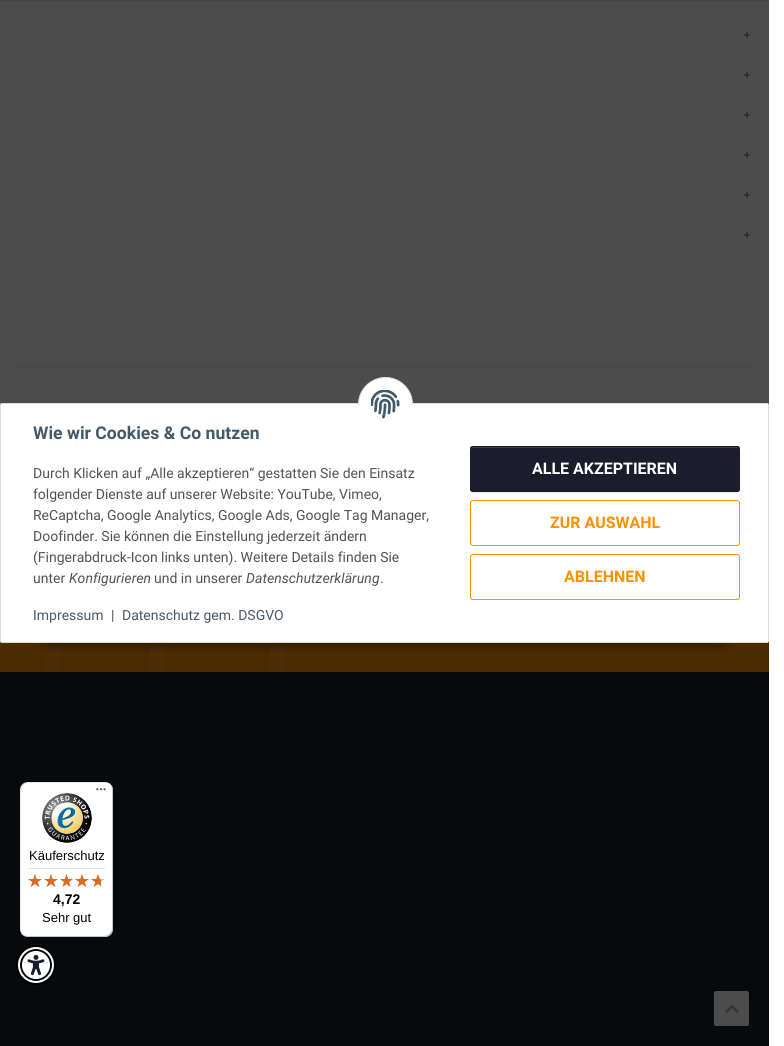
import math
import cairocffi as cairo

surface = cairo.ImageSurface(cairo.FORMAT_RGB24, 784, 1046)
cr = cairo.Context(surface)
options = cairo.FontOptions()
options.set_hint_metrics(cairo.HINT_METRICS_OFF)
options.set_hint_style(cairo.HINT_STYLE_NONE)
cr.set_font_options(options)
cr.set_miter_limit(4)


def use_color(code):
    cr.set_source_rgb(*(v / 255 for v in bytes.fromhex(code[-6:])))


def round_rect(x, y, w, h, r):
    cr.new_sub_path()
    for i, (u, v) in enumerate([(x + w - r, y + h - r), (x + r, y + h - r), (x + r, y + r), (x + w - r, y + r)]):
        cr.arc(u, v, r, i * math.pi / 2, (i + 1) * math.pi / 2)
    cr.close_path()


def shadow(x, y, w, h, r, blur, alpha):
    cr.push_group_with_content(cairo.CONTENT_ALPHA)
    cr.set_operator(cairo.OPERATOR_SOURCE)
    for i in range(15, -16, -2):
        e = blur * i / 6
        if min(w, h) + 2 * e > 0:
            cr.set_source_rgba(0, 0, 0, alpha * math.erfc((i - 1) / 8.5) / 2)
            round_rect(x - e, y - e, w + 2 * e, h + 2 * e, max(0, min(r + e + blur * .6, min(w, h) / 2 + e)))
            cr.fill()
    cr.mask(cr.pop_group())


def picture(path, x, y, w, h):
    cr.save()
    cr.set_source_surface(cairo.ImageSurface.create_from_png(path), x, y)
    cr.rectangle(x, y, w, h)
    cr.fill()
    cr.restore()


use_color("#ffffff")
cr.paint()
use_color("#e8e8ea")
cr.rectangle(0, 0, 769, 1)
cr.fill()
use_color("#e6e6e6")
cr.rectangle(16, 366, 737, 1)
cr.fill()
picture("img1.png", 744, 32, 6, 6)
picture("img1.png", 744, 72, 6, 6)
picture("img1.png", 744, 112, 6, 6)
picture("img1.png", 744, 152, 6, 6)
picture("img1.png", 744, 192, 6, 6)
picture("img1.png", 744, 232, 6, 6)
use_color("#1c1d2c")
cr.rectangle(0, 672, 769, 374)
cr.fill()
use_color("#ff9100")
cr.rectangle(0, 641, 769, 31)
cr.fill()
picture("img3.png", 45, 643, 240, 29)
use_color("#ffffff")
round_rect(714, 991, 35, 35, 2)
cr.fill()
picture("img4.png", 725, 1005, 14, 8)
cr.set_source_rgba(0, 0, 0, 0.7)
cr.rectangle(0, 0, 769, 1046)
cr.fill()
use_color("#000000")
shadow(39, 614, 691, 32, 16, 5, 0.45)
use_color("#ffffff")
round_rect(0.5, 403.5, 768, 239, 1.5)
cr.fill_preserve()
use_color("#dddddd")
cr.set_line_width(1)
cr.stroke()
use_color("#ffffff")
cr.arc(385.5, 404.5, 27, 0, 2 * math.pi)
cr.fill_preserve()
use_color("#dddddd")
cr.stroke()
use_color("#ffffff")
cr.rectangle(358, 405, 55, 27)
cr.fill()
picture("img2.png", 371, 390, 29, 29)
cr.select_font_face("Roboto", cairo.FONT_SLANT_NORMAL, cairo.FONT_WEIGHT_BOLD)
cr.set_font_size(17.6)
use_color("#435a6b")
cr.move_to(33, 439)
cr.show_text("Wie wir Cookies & Co nutzen")
cr.select_font_face("Roboto")
cr.set_font_size(14)
use_color("#525252")
cr.move_to(33, 478)
cr.show_text("Durch Klicken auf „Alle akzeptieren“ gestatten Sie den Einsatz")
cr.move_to(33, 499)
cr.show_text("folgender Dienste auf unserer Website: YouTube, Vimeo,")
cr.move_to(33, 520)
cr.show_text("ReCaptcha, Google Analytics, Google Ads, Google Tag Manager,")
cr.move_to(33, 541)
cr.show_text("Doofinder. Sie können die Einstellung jederzeit ändern")
cr.move_to(33, 562)
cr.show_text("(Fingerabdruck-Icon links unten). Weitere Details finden Sie")
cr.move_to(33, 583)
cr.show_text("unter")
cr.select_font_face("Roboto", cairo.FONT_SLANT_ITALIC)
cr.move_to(69, 583)
cr.show_text("Konfigurieren")
cr.select_font_face("Roboto")
cr.move_to(154, 583)
cr.show_text("und in unserer")
cr.select_font_face("Roboto", cairo.FONT_SLANT_ITALIC)
cr.move_to(246, 583)
cr.show_text("Datenschutzerklärung")
cr.select_font_face("Roboto")
cr.move_to(380, 583)
cr.show_text(".")
use_color("#435a6b")
cr.move_to(33, 620)
cr.show_text("Impressum")
use_color("#525252")
cr.move_to(111, 620)
cr.show_text("|")
use_color("#435a6b")
cr.move_to(122, 620)
cr.show_text("Datenschutz gem. DSGVO")
use_color("#000000")
shadow(470, 447, 270, 46, 3, 0.5, 0.07)
use_color("#1c1d2c")
round_rect(470, 446, 270, 46, 3)
cr.fill()
use_color("#3e3f4c")
cr.new_path()
cr.move_to(473, 448)
cr.line_to(737, 448)
cr.curve_to(738, 448, 739, 449, 739, 450)
cr.curve_to(739, 449, 739, 447, 737, 447)
cr.line_to(473, 447)
cr.line_to(471, 448)
cr.line_to(471, 450)
cr.curve_to(471, 449, 472, 448, 473, 448)
cr.close_path()
cr.fill()
round_rect(470.5, 446.5, 269, 45, 2.5)
use_color("#1c1d2c")
cr.stroke()
cr.select_font_face("Roboto", cairo.FONT_SLANT_NORMAL, cairo.FONT_WEIGHT_BOLD)
cr.set_font_size(16)
use_color("#ffffff")
cr.move_to(532, 474)
cr.show_text("ALLE AKZEPTIEREN")
round_rect(470.5, 500.5, 269, 45, 2.5)
use_color("#ff9100")
cr.stroke()
cr.move_to(550, 528)
cr.show_text("ZUR AUSWAHL")
round_rect(470.5, 554.5, 269, 45, 2.5)
cr.stroke()
cr.move_to(564, 582)
cr.show_text("ABLEHNEN")
use_color("#ffffff")
round_rect(20, 782, 93, 155, 8)
cr.fill()
cr.set_source_rgba(0, 0, 0, 0.1)
cr.new_path()
cr.move_to(29, 783)
cr.line_to(106, 783)
cr.curve_to(108, 783, 110, 784, 112, 786)
cr.curve_to(110, 784, 108, 782, 105, 782)
cr.line_to(28, 782)
cr.curve_to(24, 782, 20, 786, 20, 790)
cr.line_to(20, 929)
cr.curve_to(20, 932, 22, 934, 24, 936)
cr.curve_to(22, 934, 21, 932, 21, 930)
cr.line_to(21, 791)
cr.curve_to(21, 787, 25, 783, 29, 783)
cr.close_path()
cr.fill()
cr.set_source_rgba(0, 0, 0, 0.2)
cr.new_path()
cr.move_to(21, 933)
cr.curve_to(23, 935, 25, 937, 28, 937)
cr.line_to(105, 937)
cr.curve_to(109, 937, 113, 933, 113, 929)
cr.line_to(113, 790)
cr.curve_to(113, 787, 111, 785, 109, 783)
cr.curve_to(111, 785, 112, 787, 112, 789)
cr.line_to(112, 928)
cr.curve_to(112, 932, 108, 936, 104, 936)
cr.line_to(27, 936)
cr.curve_to(25, 936, 23, 935, 21, 933)
cr.close_path()
cr.fill()
cr.set_source_rgba(0.196, 0.196, 0.196, 0.2)
cr.new_path()
cr.move_to(22, 934)
cr.curve_to(23, 936, 26, 937, 28, 937)
cr.line_to(105, 937)
cr.curve_to(109, 937, 113, 933, 113, 929)
cr.line_to(113, 790)
cr.curve_to(113, 788, 112, 785, 110, 784)
cr.curve_to(111, 785, 112, 787, 112, 789)
cr.line_to(112, 928)
cr.curve_to(112, 933, 109, 936, 104, 936)
cr.line_to(27, 936)
cr.curve_to(25, 936, 23, 935, 22, 934)
cr.close_path()
cr.fill()
cr.set_source_rgba(1, 1, 1, 0.3)
cr.new_path()
cr.move_to(112, 790)
cr.curve_to(112, 785, 109, 782, 104, 782)
cr.line_to(105, 782)
cr.curve_to(109, 782, 113, 786, 113, 790)
cr.line_to(113, 929)
cr.curve_to(113, 933, 109, 937, 105, 937)
cr.line_to(28, 937)
cr.curve_to(24, 937, 20, 933, 20, 929)
cr.line_to(20, 928)
cr.curve_to(20, 933, 23, 936, 28, 936)
cr.line_to(104, 936)
cr.curve_to(109, 936, 112, 933, 112, 928)
cr.close_path()
cr.fill()
picture("img5.png", 96, 788, 10, 3)
picture("img6.png", 42, 793, 50, 50)
cr.select_font_face("Liberation Sans")
cr.set_font_size(13)
use_color("#000000")
cr.move_to(29, 860)
cr.show_text("Käuferschutz")
use_color("#e5e5e5")
cr.rectangle(28, 868, 77, 1)
cr.fill()
picture("img7.png", 28, 874, 14, 13)
picture("img7.png", 44, 874, 14, 13)
picture("img8.png", 60, 874, 13, 13)
picture("img7.png", 75, 874, 14, 13)
picture("img7.png", 91, 874, 14, 13)
picture("img9.png", 28, 874, 14, 13)
picture("img9.png", 44, 874, 14, 13)
picture("img10.png", 60, 874, 13, 13)
picture("img9.png", 75, 874, 14, 13)
picture("img11.png", 91, 874, 10, 13)
cr.select_font_face("Liberation Sans", cairo.FONT_SLANT_NORMAL, cairo.FONT_WEIGHT_BOLD)
cr.set_font_size(14)
use_color("#000000")
cr.move_to(53, 904)
cr.show_text("4,72")
cr.select_font_face("Liberation Sans")
cr.set_font_size(13)
cr.move_to(42, 922)
cr.show_text("Sehr gut")
use_color("#ffffff")
cr.new_path()
cr.arc(36, 965, 19, 0, 2 * math.pi)
cr.fill_preserve()
use_color("#000000")
cr.set_line_width(2)
cr.stroke()
picture("img12.png", 20, 949, 32, 32)
surface.write_to_png("result.png")
